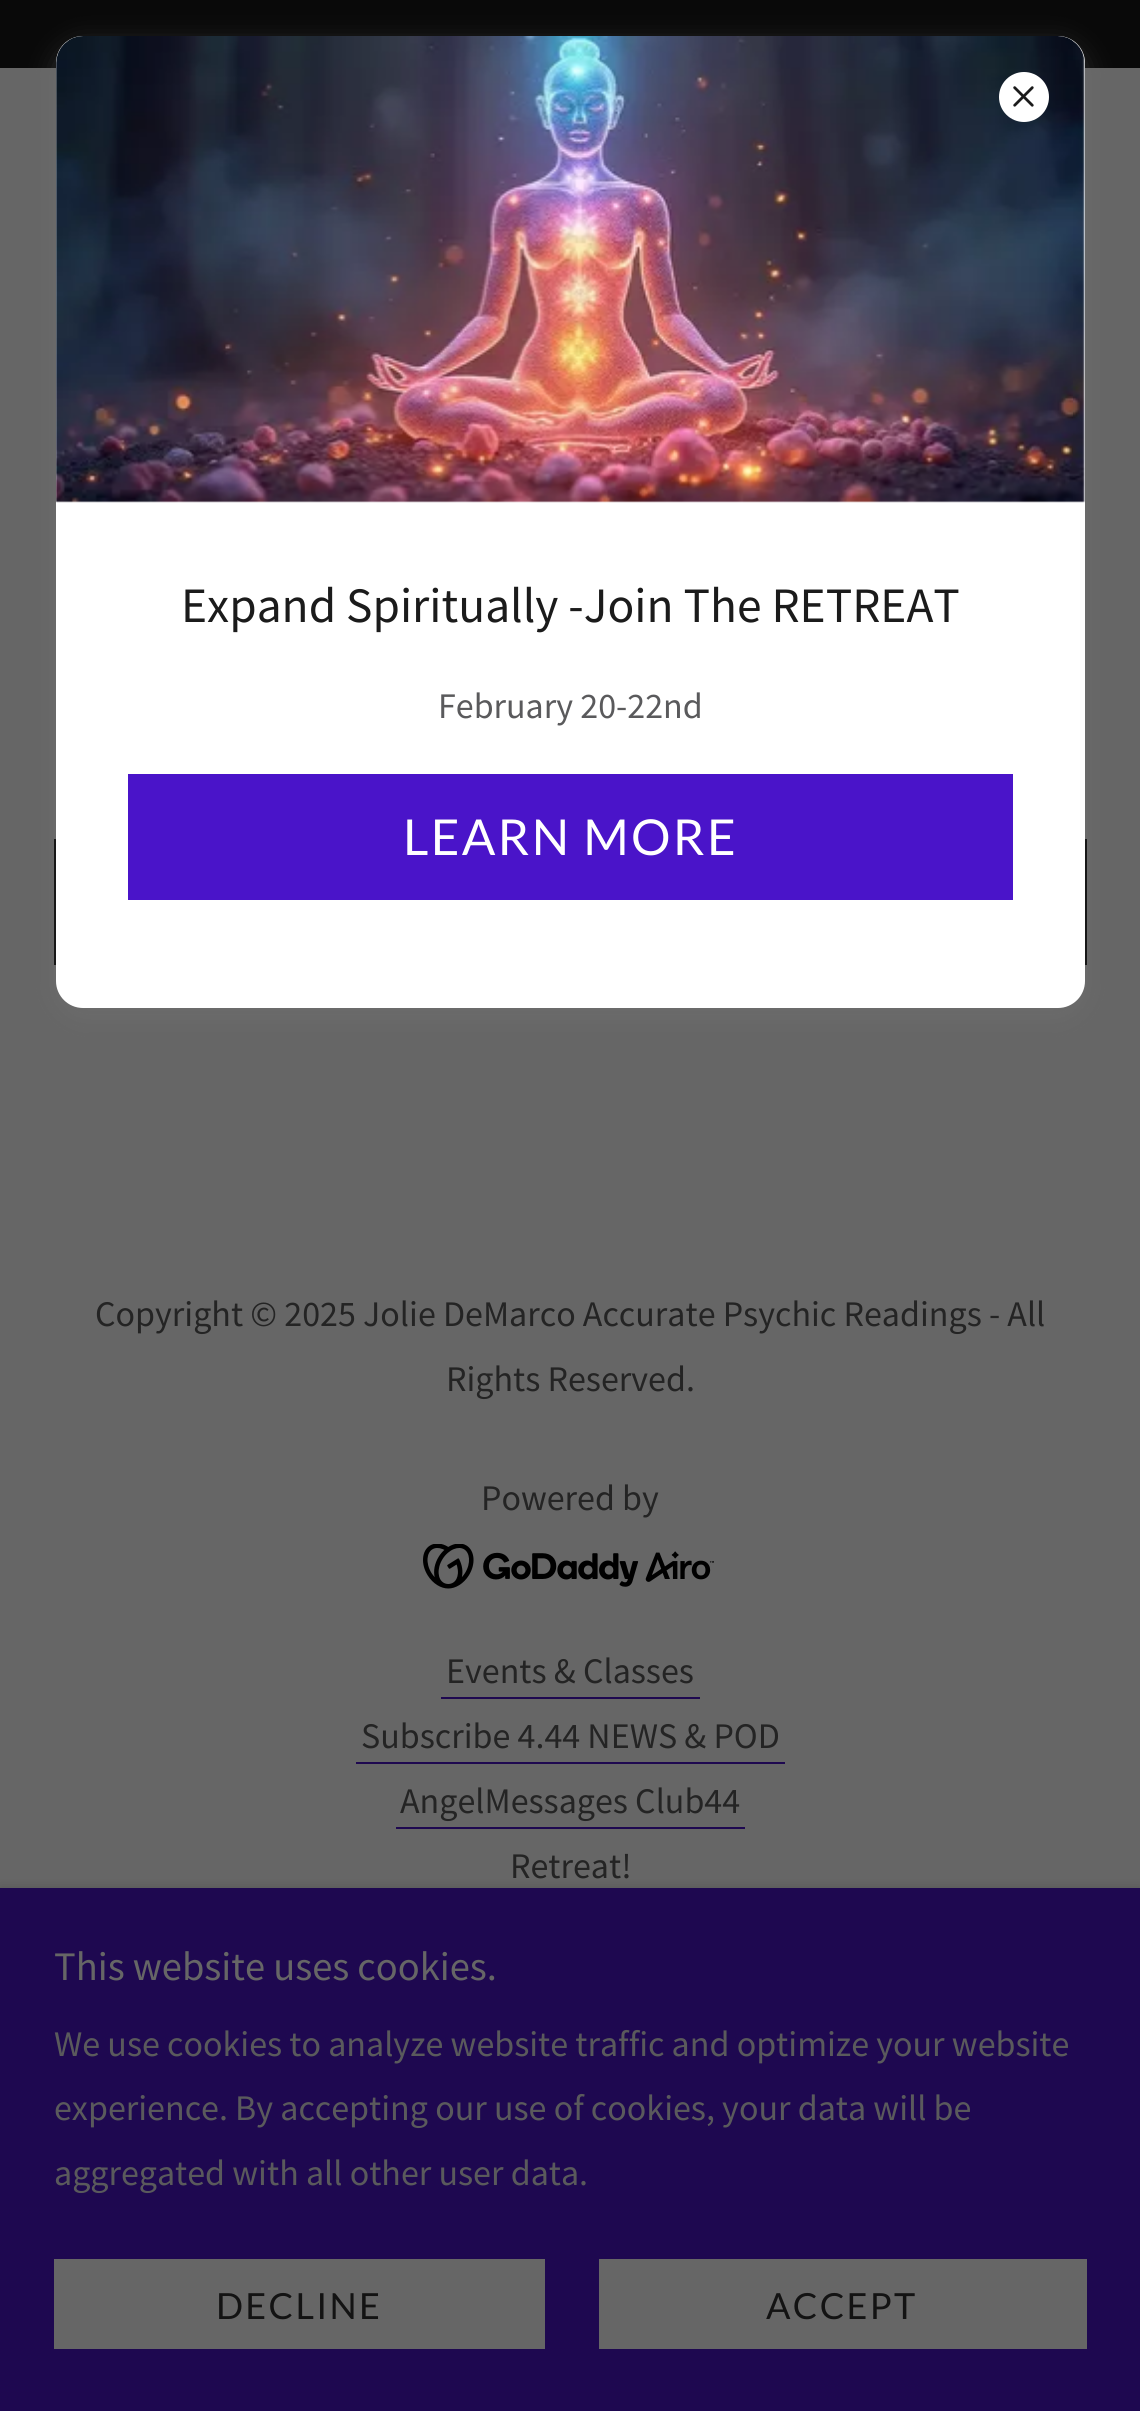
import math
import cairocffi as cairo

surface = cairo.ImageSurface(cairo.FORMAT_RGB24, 1140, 2411)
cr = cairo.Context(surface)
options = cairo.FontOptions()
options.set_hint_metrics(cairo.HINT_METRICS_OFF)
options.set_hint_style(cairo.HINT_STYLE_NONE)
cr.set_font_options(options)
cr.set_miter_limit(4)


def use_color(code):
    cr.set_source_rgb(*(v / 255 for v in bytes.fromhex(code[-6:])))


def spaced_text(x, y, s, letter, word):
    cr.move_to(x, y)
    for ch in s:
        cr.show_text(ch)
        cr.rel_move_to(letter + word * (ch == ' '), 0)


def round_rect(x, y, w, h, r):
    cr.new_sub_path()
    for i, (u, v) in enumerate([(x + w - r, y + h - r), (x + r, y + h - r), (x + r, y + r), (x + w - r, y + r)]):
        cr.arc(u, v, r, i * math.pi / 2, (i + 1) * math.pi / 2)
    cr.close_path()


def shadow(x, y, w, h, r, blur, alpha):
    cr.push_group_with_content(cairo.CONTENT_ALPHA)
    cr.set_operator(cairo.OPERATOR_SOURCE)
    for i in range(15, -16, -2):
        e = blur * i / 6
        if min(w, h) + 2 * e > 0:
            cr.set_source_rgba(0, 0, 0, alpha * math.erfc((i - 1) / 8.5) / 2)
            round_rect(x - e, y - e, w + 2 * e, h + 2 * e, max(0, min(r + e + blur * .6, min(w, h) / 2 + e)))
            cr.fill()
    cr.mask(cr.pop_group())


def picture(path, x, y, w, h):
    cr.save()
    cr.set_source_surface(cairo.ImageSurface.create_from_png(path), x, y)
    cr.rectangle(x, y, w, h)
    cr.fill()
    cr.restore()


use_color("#666666")
cr.paint()
use_color("#090909")
cr.rectangle(0, 0, 1140, 68)
cr.fill()
use_color("#000000")
cr.rectangle(54, 839, 1033, 126)
cr.fill()
use_color("#757575")
shadow(56, 45, 1029, 972, 27, 13.5, 0.4)
use_color("#ffffff")
round_rect(56, 36, 1029, 972, 27)
cr.fill()
picture("img2.png", 56, 36, 1029, 467)
cr.arc(1024, 97, 25, 0, 2 * math.pi)
cr.fill()
picture("img1.png", 1013, 86, 21, 21)
cr.select_font_face("Source Sans Pro")
cr.set_font_size(49.5)
use_color("#1b1b1b")
cr.move_to(181, 622)
cr.show_text("Expand Spiritually -Join The RETREAT")
cr.set_font_size(36)
use_color("#5a5a5c")
cr.move_to(438, 718)
cr.show_text("February 20-22nd")
use_color("#4a14c9")
cr.rectangle(128, 774, 885, 126)
cr.fill()
cr.select_font_face("Lato")
cr.set_font_size(49.5)
use_color("#ffffff")
spaced_text(403, 855, "LEARN MORE", 2.25, 0)
cr.select_font_face("Source Sans Pro")
cr.set_font_size(36)
use_color("#242424")
cr.move_to(95, 1326)
cr.show_text("Copyright © 2025 Jolie DeMarco Accurate Psychic Readings - All")
cr.move_to(446, 1391)
cr.show_text("Rights Reserved.")
cr.move_to(481, 1510)
cr.show_text("Powered by")
picture("img3.png", 423, 1544, 291, 45)
use_color("#1e0850")
cr.rectangle(441, 1697, 259, 2)
cr.fill()
use_color("#242424")
cr.move_to(446, 1683)
cr.show_text("Events & Classes")
use_color("#1e0850")
cr.rectangle(356, 1762, 429, 2)
cr.fill()
use_color("#242424")
cr.move_to(361, 1748)
cr.show_text("Subscribe 4.44 NEWS & POD")
use_color("#1e0850")
cr.rectangle(396, 1827, 349, 2)
cr.fill()
use_color("#242424")
cr.move_to(400, 1813)
cr.show_text("AngelMessages Club44")
cr.move_to(510, 1878)
cr.show_text("Retreat!")
use_color("#000000")
shadow(0, 1892, 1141, 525, 0, 7, 0.3)
use_color("#1e0850")
cr.rectangle(0, 1888, 1140, 523)
cr.fill()
cr.set_font_size(40.5)
use_color("#666666")
cr.move_to(54, 1980)
cr.show_text("This website uses cookies.")
cr.set_font_size(36)
use_color("#5a5a5c")
cr.move_to(54, 2056)
cr.show_text("We use cookies to analyze website traffic and optimize your website")
cr.move_to(54, 2120)
cr.show_text("experience. By accepting our use of cookies, your data will be")
cr.move_to(54, 2185)
cr.show_text("aggregated with all other user data.")
use_color("#666666")
cr.rectangle(54, 2259, 491, 90)
cr.fill()
cr.select_font_face("Lato")
use_color("#131313")
spaced_text(216, 2319, "DECLINE", 2.25, 0)
use_color("#666666")
cr.rectangle(599, 2259, 488, 90)
cr.fill()
use_color("#131313")
spaced_text(766, 2319, "ACCEPT", 2.25, 0)
surface.write_to_png("result.png")
